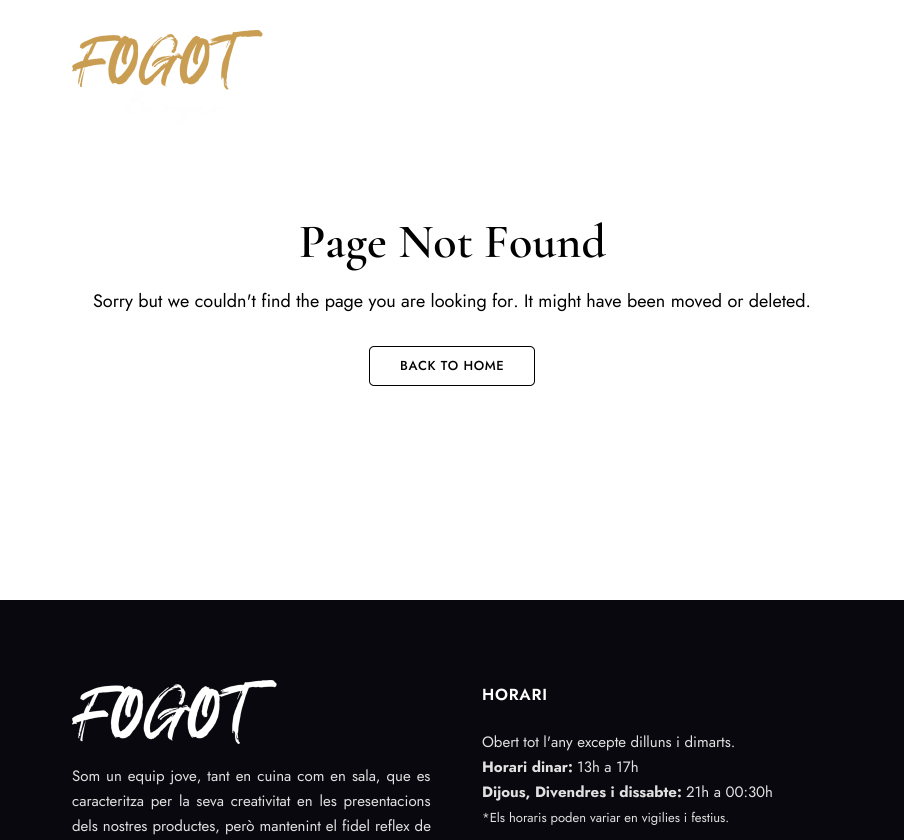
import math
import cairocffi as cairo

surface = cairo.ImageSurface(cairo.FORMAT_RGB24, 904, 840)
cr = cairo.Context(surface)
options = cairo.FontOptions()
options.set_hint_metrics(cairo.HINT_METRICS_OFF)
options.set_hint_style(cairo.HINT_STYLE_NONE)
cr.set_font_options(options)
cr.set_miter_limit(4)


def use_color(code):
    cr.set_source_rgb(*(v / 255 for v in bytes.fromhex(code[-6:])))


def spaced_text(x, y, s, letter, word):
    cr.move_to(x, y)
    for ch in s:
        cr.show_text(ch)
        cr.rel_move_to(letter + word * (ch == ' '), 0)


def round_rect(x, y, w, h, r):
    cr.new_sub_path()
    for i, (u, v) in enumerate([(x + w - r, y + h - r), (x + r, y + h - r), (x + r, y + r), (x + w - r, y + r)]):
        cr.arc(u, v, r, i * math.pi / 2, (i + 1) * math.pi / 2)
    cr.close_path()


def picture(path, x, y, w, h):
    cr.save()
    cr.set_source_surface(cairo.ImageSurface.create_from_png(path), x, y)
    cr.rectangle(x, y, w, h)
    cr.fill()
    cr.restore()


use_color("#ffffff")
cr.paint()
picture("img1.png", 72, 30, 191, 95)
cr.select_font_face("Cormorant Garamond SemiBold")
cr.set_font_size(48)
use_color("#000000")
cr.move_to(299, 257)
cr.show_text("Page Not Found")
cr.select_font_face("Jost")
cr.set_font_size(18)
cr.move_to(93, 307)
cr.show_text("Sorry but we couldn't find the page you are looking for. It might have been moved or deleted.")
round_rect(369.5, 346.5, 165, 39, 4.5)
cr.set_line_width(1)
cr.stroke()
cr.select_font_face("Jost Medium")
cr.set_font_size(13)
spaced_text(400, 370, "BACK TO HOME", 0.6, 0)
use_color("#09080e")
cr.rectangle(0, 600, 904, 240)
cr.fill()
picture("img2.png", 72, 680, 205, 64)
cr.select_font_face("Jost")
cr.set_font_size(15)
use_color("#e1e1e1")
spaced_text(72, 781, "Som un equip jove, tant en cuina com en sala, que es", 0, 1.5)
spaced_text(72, 806, "caracteritza per la seva creativitat en les presentacions", 0, 2.25)
spaced_text(72, 831, "dels nostres productes, però mantenint el fidel reflex de", 0, 0.5)
cr.select_font_face("Jost SemiBold")
cr.set_font_size(16)
use_color("#ffffff")
spaced_text(482, 700, "HORARI", 0.75, 0)
cr.select_font_face("Jost")
cr.set_font_size(15)
use_color("#e1e1e1")
cr.move_to(482, 747)
cr.show_text("Obert tot l'any excepte dilluns i dimarts.")
cr.select_font_face("Jost", cairo.FONT_SLANT_NORMAL, cairo.FONT_WEIGHT_BOLD)
cr.move_to(482, 772)
cr.show_text("Horari dinar:")
cr.select_font_face("Jost")
cr.move_to(577, 772)
cr.show_text("13h a 17h")
cr.select_font_face("Jost", cairo.FONT_SLANT_NORMAL, cairo.FONT_WEIGHT_BOLD)
cr.move_to(482, 797)
cr.show_text("Dijous, Divendres i dissabte:")
cr.select_font_face("Jost")
cr.move_to(686, 797)
cr.show_text("21h a 00:30h")
cr.set_font_size(13)
cr.move_to(482, 822)
cr.show_text("*Els horaris poden variar en vigilies i festius.")
surface.write_to_png("result.png")
